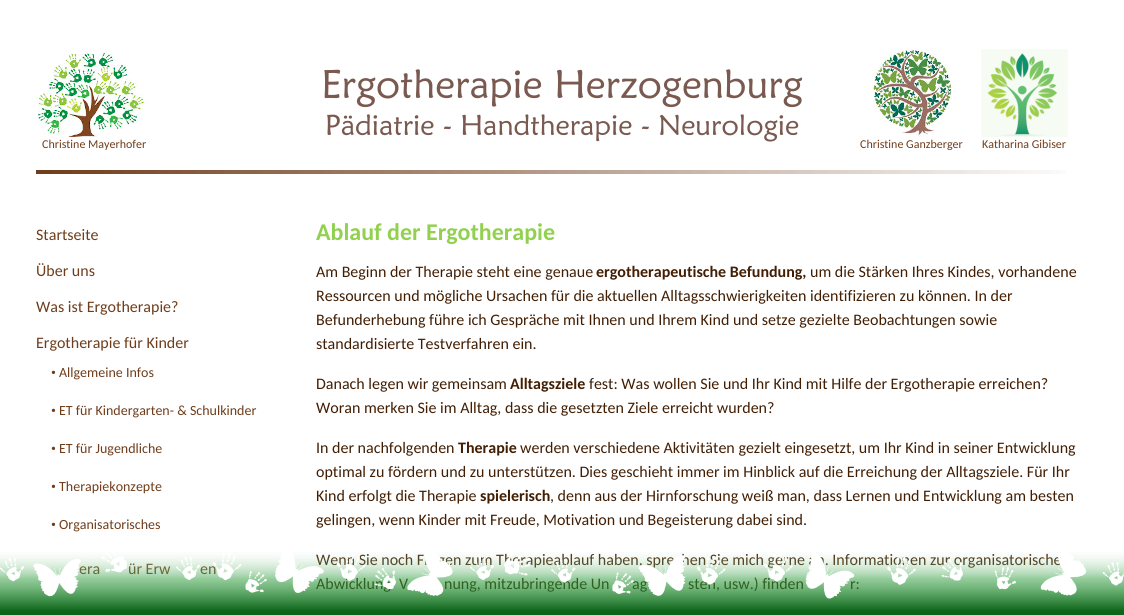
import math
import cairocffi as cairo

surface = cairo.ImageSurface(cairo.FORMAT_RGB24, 1124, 615)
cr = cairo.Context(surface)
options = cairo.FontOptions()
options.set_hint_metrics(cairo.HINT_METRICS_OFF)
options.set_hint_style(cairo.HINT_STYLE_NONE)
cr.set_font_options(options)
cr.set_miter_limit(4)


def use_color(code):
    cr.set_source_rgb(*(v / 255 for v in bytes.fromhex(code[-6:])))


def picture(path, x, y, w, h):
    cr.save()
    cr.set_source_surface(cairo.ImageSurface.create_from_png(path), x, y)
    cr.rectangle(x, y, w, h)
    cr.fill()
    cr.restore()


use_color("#ffffff")
cr.paint()
cr.select_font_face("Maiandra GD")
cr.set_font_size(40)
use_color("#7a5a50")
cr.move_to(321, 98)
cr.show_text("Ergotherapie Herzogenburg")
cr.set_font_size(28.75)
cr.move_to(325, 135)
cr.show_text("Pädiatrie - Handtherapie - Neurologie")
picture("img1.png", 38, 49, 110, 88)
cr.select_font_face("Carlito")
cr.set_font_size(12)
use_color("#6f3d1b")
cr.move_to(42, 148)
cr.show_text("Christine Mayerhofer")
picture("img2.png", 871, 49, 81, 87)
cr.move_to(860, 148)
cr.show_text("Christine Ganzberger")
picture("img3.png", 981, 49, 87, 88)
cr.move_to(982, 148)
cr.show_text("Katharina Gibiser")
picture("img4.png", 36, 170, 1030, 4)
cr.set_font_size(16)
cr.move_to(36, 240)
cr.show_text("Startseite")
cr.move_to(36, 276)
cr.show_text("Über uns")
cr.move_to(36, 312)
cr.show_text("Was ist Ergotherapie?")
cr.move_to(36, 348)
cr.show_text("Ergotherapie für Kinder")
cr.select_font_face("Liberation Serif")
cr.set_font_size(14)
cr.move_to(51, 377)
cr.show_text("•")
cr.select_font_face("Carlito")
cr.move_to(59, 377)
cr.show_text("Allgemeine Infos")
cr.select_font_face("Liberation Serif")
cr.move_to(51, 415)
cr.show_text("•")
cr.select_font_face("Carlito")
cr.move_to(59, 415)
cr.show_text("ET für Kindergarten- & Schulkinder")
cr.select_font_face("Liberation Serif")
cr.move_to(51, 453)
cr.show_text("•")
cr.select_font_face("Carlito")
cr.move_to(59, 453)
cr.show_text("ET für Jugendliche")
cr.select_font_face("Liberation Serif")
cr.move_to(51, 491)
cr.show_text("•")
cr.select_font_face("Carlito")
cr.move_to(59, 491)
cr.show_text("Therapiekonzepte")
cr.select_font_face("Liberation Serif")
cr.move_to(51, 529)
cr.show_text("•")
cr.select_font_face("Carlito")
cr.move_to(59, 529)
cr.show_text("Organisatorisches")
cr.set_font_size(16)
cr.move_to(79, 574)
cr.show_text("era")
cr.move_to(128, 574)
cr.show_text("ür Erw")
cr.move_to(200, 574)
cr.show_text("en")
cr.select_font_face("Carlito", cairo.FONT_SLANT_NORMAL, cairo.FONT_WEIGHT_BOLD)
cr.set_font_size(24)
use_color("#92d050")
cr.move_to(316, 240)
cr.show_text("Ablauf der Ergotherapie")
cr.select_font_face("Carlito")
cr.set_font_size(16)
use_color("#421e03")
cr.move_to(316, 277)
cr.show_text("Am Beginn der Therapie steht eine genaue")
cr.select_font_face("Carlito", cairo.FONT_SLANT_NORMAL, cairo.FONT_WEIGHT_BOLD)
cr.move_to(596, 277)
cr.show_text("ergotherapeutische Befundung,")
cr.select_font_face("Carlito")
cr.move_to(810, 277)
cr.show_text("um die Stärken Ihres Kindes, vorhandene")
cr.move_to(316, 301)
cr.show_text("Ressourcen und mögliche Ursachen für die aktuellen Alltagsschwierigkeiten identifizieren zu können. In der")
cr.move_to(316, 325)
cr.show_text("Befunderhebung führe ich Gespräche mit Ihnen und Ihrem Kind und setze gezielte Beobachtungen sowie")
cr.move_to(316, 349)
cr.show_text("standardisierte Testverfahren ein.")
cr.move_to(316, 389)
cr.show_text("Danach legen wir gemeinsam")
cr.select_font_face("Carlito", cairo.FONT_SLANT_NORMAL, cairo.FONT_WEIGHT_BOLD)
cr.move_to(510, 389)
cr.show_text("Alltagsziele")
cr.select_font_face("Carlito")
cr.move_to(589, 389)
cr.show_text("fest: Was wollen Sie und Ihr Kind mit Hilfe der Ergotherapie erreichen?")
cr.move_to(316, 413)
cr.show_text("Woran merken Sie im Alltag, dass die gesetzten Ziele erreicht wurden?")
cr.move_to(316, 453)
cr.show_text("In der nachfolgenden")
cr.select_font_face("Carlito", cairo.FONT_SLANT_NORMAL, cairo.FONT_WEIGHT_BOLD)
cr.move_to(458, 453)
cr.show_text("Therapie")
cr.select_font_face("Carlito")
cr.move_to(520, 453)
cr.show_text("werden verschiedene Aktivitäten gezielt eingesetzt, um Ihr Kind in seiner Entwicklung")
cr.move_to(316, 477)
cr.show_text("optimal zu fördern und zu unterstützen. Dies geschieht immer im Hinblick auf die Erreichung der Alltagsziele. Für Ihr")
cr.move_to(316, 501)
cr.show_text("Kind erfolgt die Therapie")
cr.select_font_face("Carlito", cairo.FONT_SLANT_NORMAL, cairo.FONT_WEIGHT_BOLD)
cr.move_to(480, 501)
cr.show_text("spielerisch")
cr.select_font_face("Carlito")
cr.move_to(550, 501)
cr.show_text(", denn aus der Hirnforschung weiß man, dass Lernen und Entwicklung am besten")
cr.move_to(316, 525)
cr.show_text("gelingen, wenn Kinder mit Freude, Motivation und Begeisterung dabei sind.")
cr.move_to(316, 565)
cr.show_text("Wenn Sie noch Fragen zum Therapieablauf haben, sprechen Sie mich gerne an. Informationen zur organisatorische")
cr.move_to(316, 589)
cr.show_text("Abwicklung")
cr.move_to(399, 589)
cr.show_text("V")
cr.move_to(444, 589)
cr.show_text("nung, mitzubringende Un")
cr.move_to(632, 589)
cr.show_text("ag")
cr.move_to(688, 589)
cr.show_text("sten, usw.) finden")
cr.move_to(850, 589)
cr.show_text("r:")
picture("img5.png", 0, 552, 1124, 63)
surface.write_to_png("result.png")
